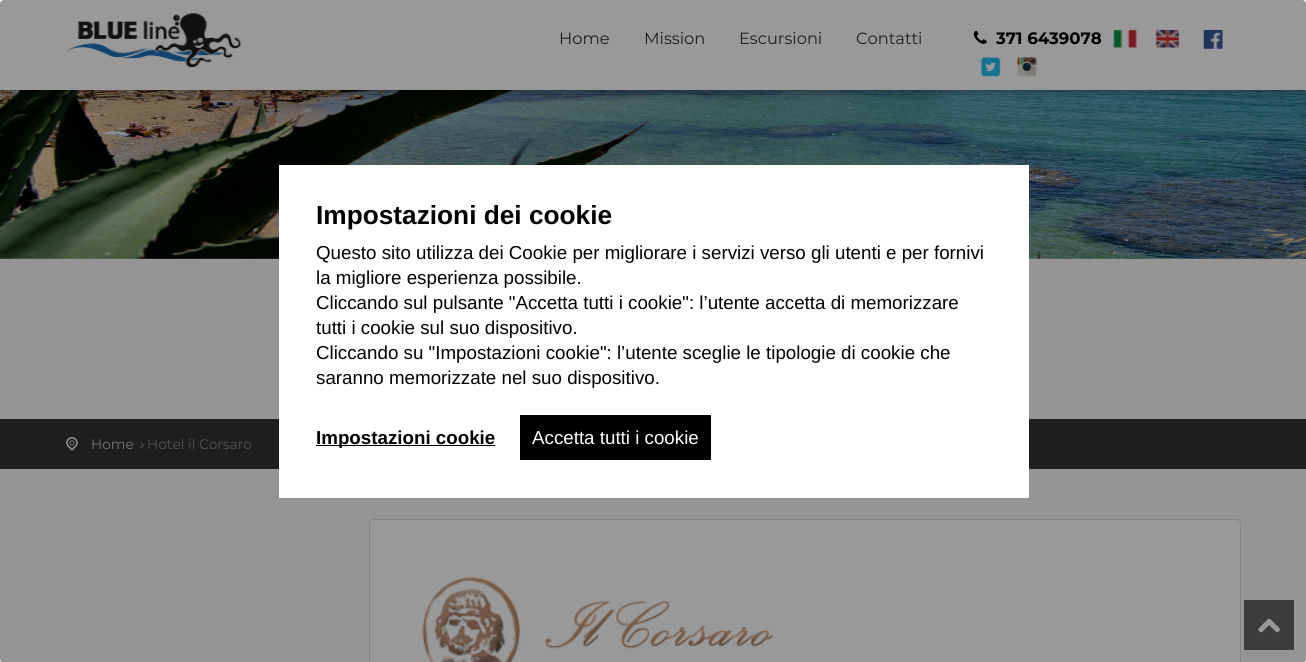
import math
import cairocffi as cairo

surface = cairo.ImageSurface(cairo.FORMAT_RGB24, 1306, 662)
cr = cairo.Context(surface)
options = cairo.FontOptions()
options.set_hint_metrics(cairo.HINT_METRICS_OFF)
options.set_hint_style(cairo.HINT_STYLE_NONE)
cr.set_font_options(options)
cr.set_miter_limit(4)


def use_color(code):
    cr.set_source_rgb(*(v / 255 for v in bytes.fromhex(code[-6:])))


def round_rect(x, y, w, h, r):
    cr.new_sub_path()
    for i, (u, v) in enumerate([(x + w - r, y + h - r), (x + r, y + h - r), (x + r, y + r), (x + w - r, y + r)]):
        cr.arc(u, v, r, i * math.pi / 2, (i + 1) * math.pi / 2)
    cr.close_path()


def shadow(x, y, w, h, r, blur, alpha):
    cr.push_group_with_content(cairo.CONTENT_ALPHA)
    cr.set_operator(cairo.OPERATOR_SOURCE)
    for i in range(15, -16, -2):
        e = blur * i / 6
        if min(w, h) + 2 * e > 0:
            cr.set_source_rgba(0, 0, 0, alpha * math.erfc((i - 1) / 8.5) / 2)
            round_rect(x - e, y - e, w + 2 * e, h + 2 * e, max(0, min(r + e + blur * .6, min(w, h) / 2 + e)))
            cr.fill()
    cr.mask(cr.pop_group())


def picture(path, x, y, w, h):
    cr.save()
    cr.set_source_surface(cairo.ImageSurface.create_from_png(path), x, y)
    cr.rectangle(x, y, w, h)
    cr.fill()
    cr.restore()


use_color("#f9f9f9")
cr.paint()
picture("img8.png", 0, 90, 1306, 169)
use_color("#000000")
shadow(3, 5, 1301, 85, 0, 6, 0.41)
use_color("#ffffff")
cr.rectangle(0, 0, 1306, 90)
cr.fill()
picture("img1.png", 66, 12, 176, 56)
cr.select_font_face("Montserrat")
cr.set_font_size(16.25)
use_color("#333333")
cr.move_to(559, 44)
cr.show_text("Home")
cr.move_to(644, 44)
cr.show_text("Mission")
cr.move_to(739, 44)
cr.show_text("Escursioni")
cr.move_to(856, 44)
cr.show_text("Contatti")
picture("img2.png", 973, 30, 14, 14)
cr.select_font_face("Montserrat", cairo.FONT_SLANT_NORMAL, cairo.FONT_WEIGHT_BOLD)
cr.set_font_size(16.5)
use_color("#000000")
cr.move_to(996, 44)
cr.show_text("371 6439078")
picture("img3.png", 1113, 29, 24, 19)
picture("img4.png", 1155, 29, 25, 19)
picture("img5.png", 1203, 30, 20, 19)
picture("img6.png", 980, 57, 21, 20)
picture("img7.png", 1016, 57, 21, 20)
use_color("#333333")
cr.rectangle(0, 419, 1306, 50)
cr.fill()
picture("img9.png", 66, 437, 12, 14)
cr.select_font_face("Montserrat")
cr.set_font_size(13.75)
use_color("#c2c2c2")
cr.move_to(91, 449)
cr.show_text("Home")
picture("img10.png", 140, 442, 4, 7)
use_color("#888888")
cr.move_to(147, 449)
cr.show_text("Hotel il Corsaro")
use_color("#ffffff")
round_rect(369.5, 519.5, 871, 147, 3.5)
cr.fill_preserve()
use_color("#dddddd")
cr.set_line_width(1)
cr.stroke()
picture("img11.png", 422, 577, 351, 85)
use_color("#646464")
cr.rectangle(1244, 600, 50, 50)
cr.fill()
picture("img12.png", 1258, 618, 22, 15)
cr.save()
cr.set_fill_rule(cairo.FILL_RULE_EVEN_ODD)
cr.new_path()
cr.move_to(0, 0)
cr.line_to(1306, 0)
cr.line_to(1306, 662)
cr.line_to(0, 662)
cr.close_path()
cr.move_to(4, 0)
cr.line_to(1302, 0)
cr.curve_to(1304, 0, 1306, 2, 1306, 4)
cr.line_to(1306, 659)
cr.curve_to(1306, 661, 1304, 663, 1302, 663)
cr.line_to(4, 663)
cr.curve_to(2, 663, 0, 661, 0, 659)
cr.line_to(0, 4)
cr.curve_to(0, 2, 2, 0, 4, 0)
cr.close_path()
cr.clip()
use_color("#000000")
shadow(0, 3, 1306, 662, 4, 3, 0.1)
cr.restore()
cr.set_source_rgba(0, 0, 0, 0.4)
round_rect(0, 0, 1306, 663, 4)
cr.fill()
use_color("#ffffff")
cr.rectangle(279, 165, 750, 333)
cr.fill()
cr.select_font_face("Liberation Sans", cairo.FONT_SLANT_NORMAL, cairo.FONT_WEIGHT_BOLD)
cr.set_font_size(26.25)
use_color("#000000")
cr.move_to(316, 224)
cr.show_text("Impostazioni dei cookie")
cr.select_font_face("Liberation Sans")
cr.set_font_size(18.75)
cr.move_to(316, 259)
cr.show_text("Questo sito utilizza dei Cookie per migliorare i servizi verso gli utenti e per fornivi")
cr.move_to(316, 284)
cr.show_text("la migliore esperienza possibile.")
cr.move_to(316, 309)
cr.show_text("Cliccando sul pulsante \"Accetta tutti i cookie\": l’utente accetta di memorizzare")
cr.move_to(316, 334)
cr.show_text("tutti i cookie sul suo dispositivo.")
cr.move_to(316, 359)
cr.show_text("Cliccando su \"Impostazioni cookie\": l’utente sceglie le tipologie di cookie che")
cr.move_to(316, 384)
cr.show_text("saranno memorizzate nel suo dispositivo.")
cr.rectangle(316, 445, 179, 1)
cr.fill()
cr.select_font_face("Liberation Sans", cairo.FONT_SLANT_NORMAL, cairo.FONT_WEIGHT_BOLD)
cr.move_to(316, 444)
cr.show_text("Impostazioni cookie")
cr.rectangle(520, 415, 191, 45)
cr.fill()
cr.select_font_face("Liberation Sans")
use_color("#ffffff")
cr.move_to(532, 444)
cr.show_text("Accetta tutti i cookie")
surface.write_to_png("result.png")
